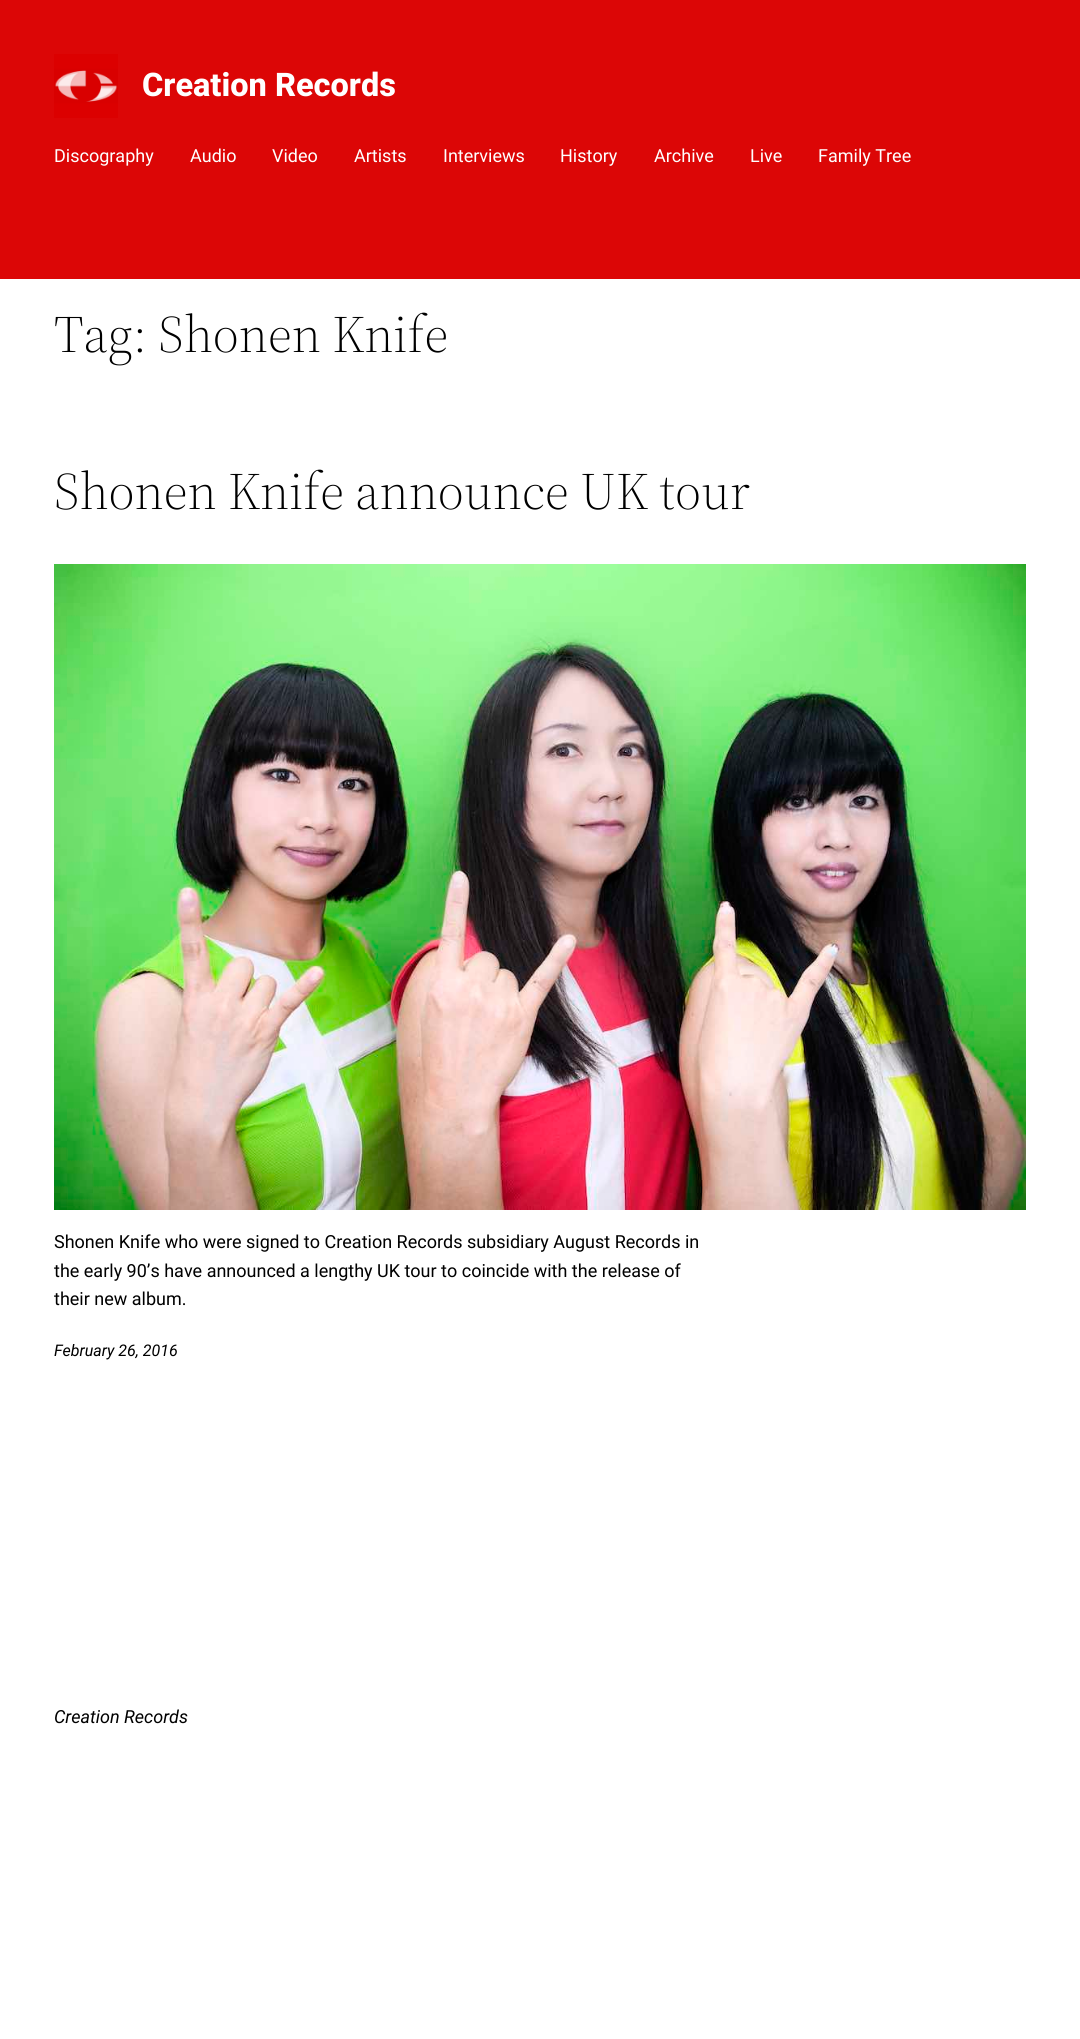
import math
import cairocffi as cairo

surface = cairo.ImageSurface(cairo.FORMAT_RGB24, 1080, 2039)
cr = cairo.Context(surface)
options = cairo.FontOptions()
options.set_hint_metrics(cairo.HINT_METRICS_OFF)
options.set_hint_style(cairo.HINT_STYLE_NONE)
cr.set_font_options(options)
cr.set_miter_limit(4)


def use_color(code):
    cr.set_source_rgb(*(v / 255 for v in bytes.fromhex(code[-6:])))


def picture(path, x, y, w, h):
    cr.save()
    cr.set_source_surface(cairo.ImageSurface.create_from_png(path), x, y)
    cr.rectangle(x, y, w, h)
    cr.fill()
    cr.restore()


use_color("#ffffff")
cr.paint()
use_color("#dc0606")
cr.rectangle(0, 0, 1080, 279)
cr.fill()
picture("img1.png", 54, 54, 64, 64)
cr.select_font_face("Roboto ExtraBold")
cr.set_font_size(32.5)
use_color("#ffffff")
cr.move_to(142, 96)
cr.show_text("Creation Records")
cr.select_font_face("Roboto")
cr.set_font_size(18)
cr.move_to(54, 162)
cr.show_text("Discography")
cr.move_to(190, 162)
cr.show_text("Audio")
cr.move_to(272, 162)
cr.show_text("Video")
cr.move_to(354, 162)
cr.show_text("Artists")
cr.move_to(443, 162)
cr.show_text("Interviews")
cr.move_to(560, 162)
cr.show_text("History")
cr.move_to(654, 162)
cr.show_text("Archive")
cr.move_to(750, 162)
cr.show_text("Live")
cr.move_to(818, 162)
cr.show_text("Family Tree")
cr.select_font_face("Source Serif 4 Light")
cr.set_font_size(52)
use_color("#000000")
cr.move_to(54, 352)
cr.show_text("Tag: Shonen Knife")
cr.move_to(54, 509)
cr.show_text("Shonen Knife announce UK tour")
picture("img2.png", 54, 564, 972, 646)
cr.select_font_face("Roboto")
cr.set_font_size(18)
cr.move_to(54, 1248)
cr.show_text("Shonen Knife who were signed to Creation Records subsidiary August Records in")
cr.move_to(54, 1277)
cr.show_text("the early 90’s have announced a lengthy UK tour to coincide with the release of")
cr.move_to(54, 1305)
cr.show_text("their new album.")
cr.select_font_face("Roboto", cairo.FONT_SLANT_ITALIC)
cr.set_font_size(16)
cr.move_to(54, 1356)
cr.show_text("February 26, 2016")
cr.set_font_size(18)
cr.move_to(54, 1723)
cr.show_text("Creation Records")
surface.write_to_png("result.png")
